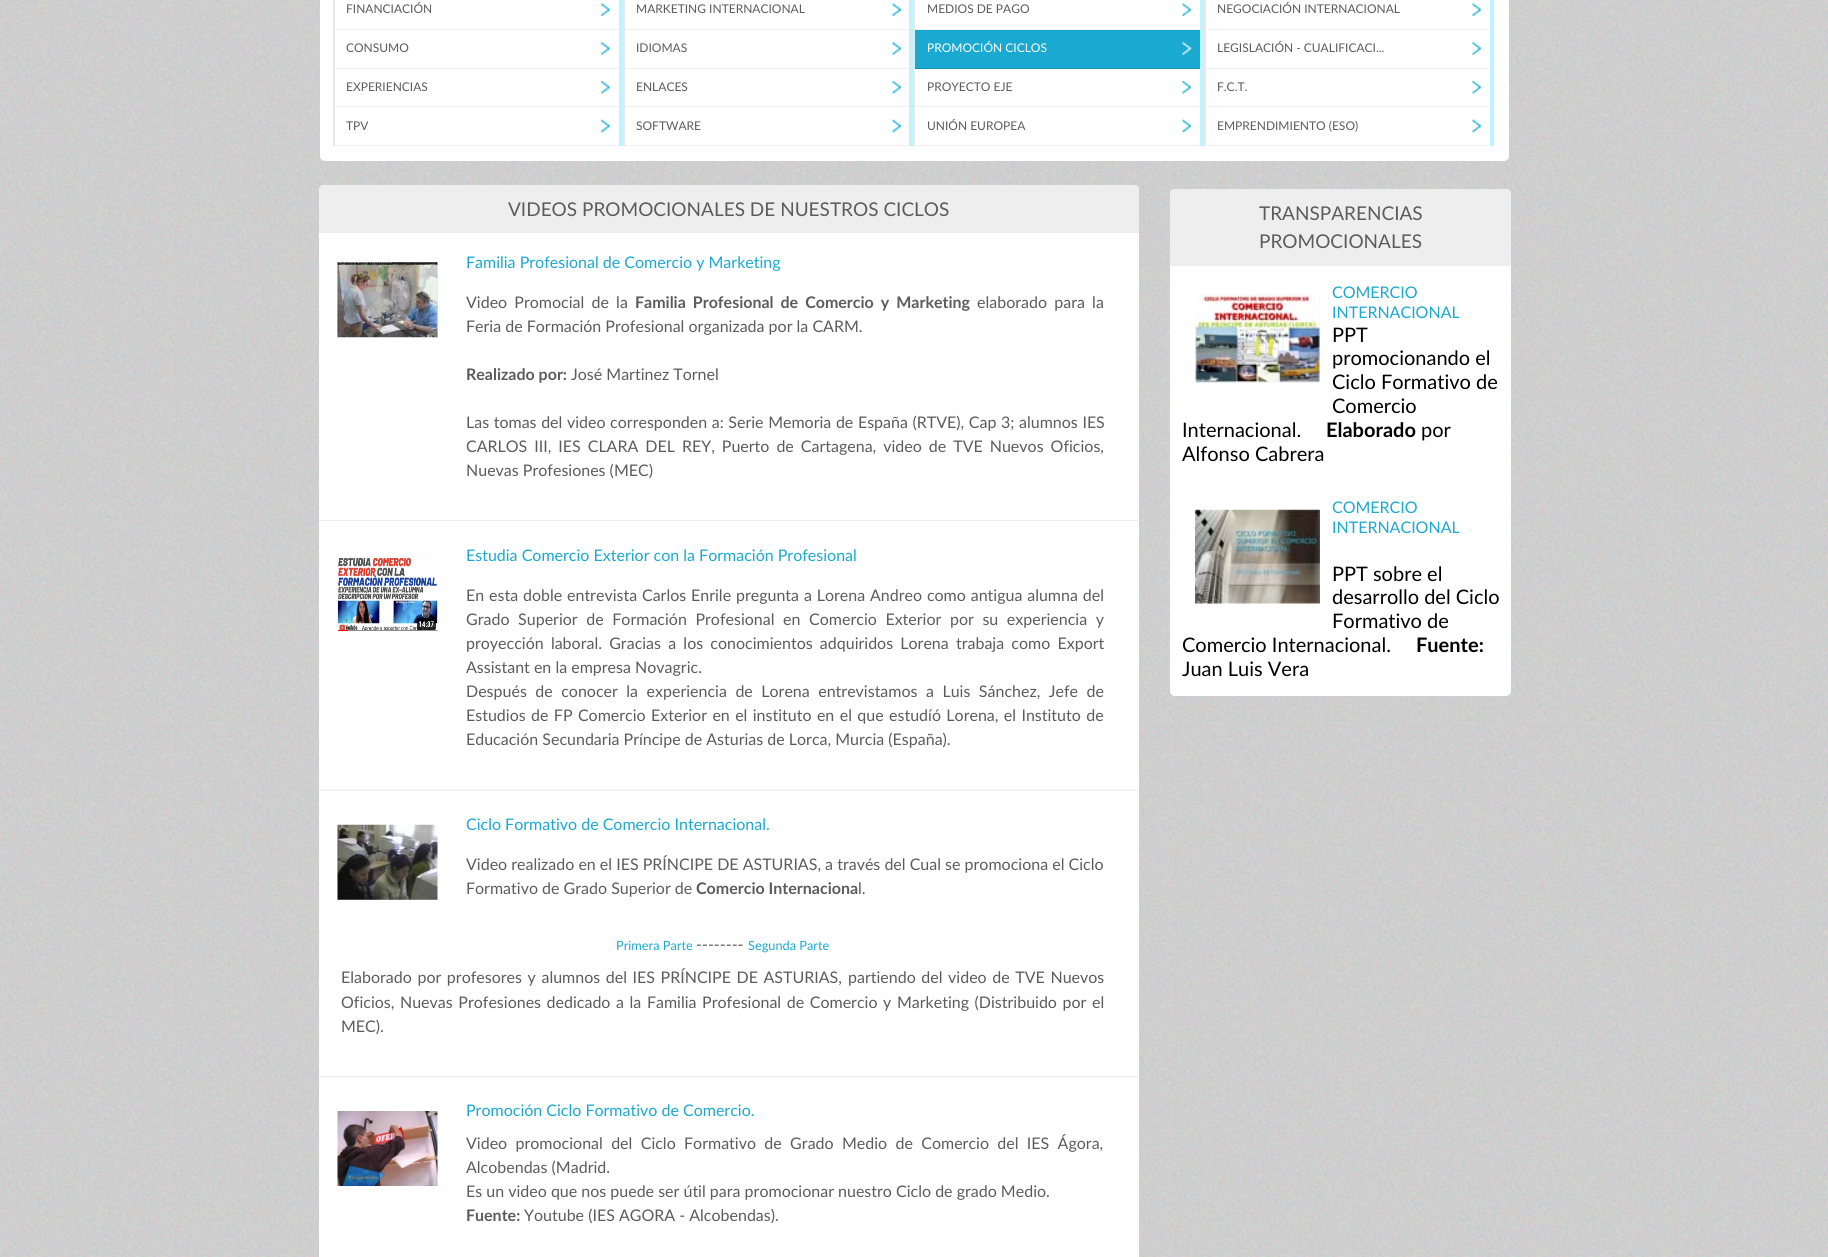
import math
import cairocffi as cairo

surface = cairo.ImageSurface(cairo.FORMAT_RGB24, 1828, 1257)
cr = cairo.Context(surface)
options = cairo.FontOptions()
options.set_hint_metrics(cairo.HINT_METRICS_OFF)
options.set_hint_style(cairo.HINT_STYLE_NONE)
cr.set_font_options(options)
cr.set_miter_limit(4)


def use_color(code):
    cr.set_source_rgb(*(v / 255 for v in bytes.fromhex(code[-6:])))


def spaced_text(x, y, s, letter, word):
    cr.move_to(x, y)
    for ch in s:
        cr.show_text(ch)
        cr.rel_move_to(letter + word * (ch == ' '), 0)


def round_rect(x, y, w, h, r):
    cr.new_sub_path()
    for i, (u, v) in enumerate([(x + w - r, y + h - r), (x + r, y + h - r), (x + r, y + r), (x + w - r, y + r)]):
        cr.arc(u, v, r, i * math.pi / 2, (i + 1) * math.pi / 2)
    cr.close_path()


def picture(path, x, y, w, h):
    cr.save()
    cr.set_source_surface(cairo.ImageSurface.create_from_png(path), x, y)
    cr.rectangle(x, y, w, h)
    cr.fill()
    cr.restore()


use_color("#ffffff")
cr.paint()
picture("img1.png", 0, 0, 1828, 1257)
use_color("#ffffff")
round_rect(320, -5, 1189, 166, 5)
cr.fill()
use_color("#c0f2ff")
cr.rectangle(619, 0, 4, 146)
cr.fill()
use_color("#e8e8e8")
cr.rectangle(333, 0, 2, 146)
cr.fill()
picture("img2.png", 601, 3, 9, 13)
use_color("#f0f0f0")
cr.rectangle(335, 29, 284, 1)
cr.fill()
cr.select_font_face("Lato")
cr.set_font_size(12)
use_color("#5c5c5c")
cr.move_to(346, 13)
cr.show_text("FINANCIACIÓN")
use_color("#c0f2ff")
cr.rectangle(909, 0, 4, 146)
cr.fill()
use_color("#e8e8e8")
cr.rectangle(623, 0, 2, 146)
cr.fill()
picture("img3.png", 892, 3, 10, 13)
use_color("#f0f0f0")
cr.rectangle(625, 29, 284, 1)
cr.fill()
use_color("#5c5c5c")
cr.move_to(636, 13)
cr.show_text("MARKETING INTERNACIONAL")
use_color("#c0f2ff")
cr.rectangle(1200, 0, 4, 146)
cr.fill()
use_color("#e8e8e8")
cr.rectangle(913, 0, 2, 146)
cr.fill()
picture("img3.png", 1182, 3, 10, 13)
use_color("#f0f0f0")
cr.rectangle(915, 29, 285, 1)
cr.fill()
use_color("#5c5c5c")
cr.move_to(927, 13)
cr.show_text("MEDIOS DE PAGO")
use_color("#c0f2ff")
cr.rectangle(1490, 0, 4, 146)
cr.fill()
use_color("#e8e8e8")
cr.rectangle(1204, 0, 2, 146)
cr.fill()
picture("img3.png", 1472, 3, 10, 13)
use_color("#f0f0f0")
cr.rectangle(1206, 29, 284, 1)
cr.fill()
use_color("#5c5c5c")
cr.move_to(1217, 13)
cr.show_text("NEGOCIACIÓN INTERNACIONAL")
picture("img4.png", 601, 42, 9, 13)
use_color("#f0f0f0")
cr.rectangle(335, 68, 284, 1)
cr.fill()
use_color("#5c5c5c")
cr.move_to(346, 52)
cr.show_text("CONSUMO")
picture("img5.png", 892, 42, 10, 13)
use_color("#f0f0f0")
cr.rectangle(625, 68, 284, 1)
cr.fill()
use_color("#5c5c5c")
cr.move_to(636, 52)
cr.show_text("IDIOMAS")
use_color("#1aa9d0")
cr.rectangle(915, 30, 285, 38)
cr.fill()
picture("img6.png", 1182, 42, 10, 13)
use_color("#1593b6")
cr.rectangle(915, 68, 285, 1)
cr.fill()
use_color("#ffffff")
cr.move_to(927, 52)
cr.show_text("PROMOCIÓN CICLOS")
picture("img5.png", 1472, 42, 10, 13)
use_color("#f0f0f0")
cr.rectangle(1206, 68, 284, 1)
cr.fill()
use_color("#5c5c5c")
cr.move_to(1217, 52)
cr.show_text("LEGISLACIÓN - CUALIFICACI...")
picture("img7.png", 601, 81, 9, 13)
use_color("#f0f0f0")
cr.rectangle(335, 106, 284, 1)
cr.fill()
use_color("#5c5c5c")
cr.move_to(346, 91)
cr.show_text("EXPERIENCIAS")
picture("img8.png", 892, 81, 10, 13)
use_color("#f0f0f0")
cr.rectangle(625, 106, 284, 1)
cr.fill()
use_color("#5c5c5c")
cr.move_to(636, 91)
cr.show_text("ENLACES")
picture("img8.png", 1182, 81, 10, 13)
use_color("#f0f0f0")
cr.rectangle(915, 106, 285, 1)
cr.fill()
use_color("#5c5c5c")
cr.move_to(927, 91)
cr.show_text("PROYECTO EJE")
picture("img8.png", 1472, 81, 10, 13)
use_color("#f0f0f0")
cr.rectangle(1206, 106, 284, 1)
cr.fill()
use_color("#5c5c5c")
cr.move_to(1217, 91)
cr.show_text("F.C.T.")
picture("img9.png", 601, 119, 9, 14)
use_color("#f0f0f0")
cr.rectangle(335, 145, 284, 1)
cr.fill()
use_color("#5c5c5c")
cr.move_to(346, 130)
cr.show_text("TPV")
picture("img10.png", 892, 119, 10, 14)
use_color("#f0f0f0")
cr.rectangle(625, 145, 284, 1)
cr.fill()
use_color("#5c5c5c")
cr.move_to(636, 130)
cr.show_text("SOFTWARE")
picture("img10.png", 1182, 119, 10, 14)
use_color("#f0f0f0")
cr.rectangle(915, 145, 285, 1)
cr.fill()
use_color("#5c5c5c")
cr.move_to(927, 130)
cr.show_text("UNIÓN EUROPEA")
picture("img10.png", 1472, 119, 10, 14)
use_color("#f0f0f0")
cr.rectangle(1206, 145, 284, 1)
cr.fill()
use_color("#5c5c5c")
cr.move_to(1217, 130)
cr.show_text("EMPRENDIMIENTO (ESO)")
use_color("#ffffff")
round_rect(319, 185, 820, 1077, 5)
cr.fill()
use_color("#eeeeee")
cr.new_path()
cr.move_to(324, 185)
cr.line_to(1134, 185)
cr.curve_to(1137, 185, 1139, 187, 1139, 190)
cr.line_to(1139, 233)
cr.line_to(319, 233)
cr.line_to(319, 190)
cr.curve_to(319, 187, 321, 185, 324, 185)
cr.close_path()
cr.fill()
cr.set_font_size(19)
use_color("#5c5c5c")
cr.move_to(508, 216)
cr.show_text("VIDEOS PROMOCIONALES DE NUESTROS CICLOS")
picture("img11.png", 337, 262, 101, 76)
cr.set_font_size(16)
use_color("#1aa9d0")
cr.move_to(466, 268)
cr.show_text("Familia Profesional de Comercio y Marketing")
use_color("#5c5c5c")
spaced_text(466, 308, "Video Promocial de la", 0, 3.1)
cr.select_font_face("Lato", cairo.FONT_SLANT_NORMAL, cairo.FONT_WEIGHT_BOLD)
spaced_text(635, 308, "Familia Profesional de Comercio y Marketing", 0, 3.1)
cr.select_font_face("Lato")
spaced_text(977, 308, "elaborado para la", 0, 3.1)
cr.move_to(466, 332)
cr.show_text("Feria de Formación Profesional organizada por la CARM.")
cr.select_font_face("Lato", cairo.FONT_SLANT_NORMAL, cairo.FONT_WEIGHT_BOLD)
cr.move_to(466, 380)
cr.show_text("Realizado por:")
cr.select_font_face("Lato")
cr.move_to(571, 380)
cr.show_text("José Martinez Tornel")
spaced_text(466, 428, "Las tomas del video corresponden a: Serie Memoria de España (RTVE), Cap 3; alumnos IES", 0, 0.5)
spaced_text(466, 452, "CARLOS III, IES CLARA DEL REY, Puerto de Cartagena, video de TVE Nuevos Oficios,", 0, 2.9)
cr.move_to(466, 476)
cr.show_text("Nuevas Profesiones (MEC)")
picture("img12.png", 319, 519, 820, 2)
picture("img13.png", 337, 556, 101, 75)
use_color("#1aa9d0")
cr.move_to(466, 561)
cr.show_text("Estudia Comercio Exterior con la Formación Profesional")
use_color("#5c5c5c")
spaced_text(466, 601, "En esta doble entrevista Carlos Enrile pregunta a Lorena Andreo como antigua alumna del", 0, 0.75)
spaced_text(466, 625, "Grado Superior de Formación Profesional en Comercio Exterior por su experiencia y", 0, 4.5)
spaced_text(466, 649, "proyección laboral. Gracias a los conocimientos adquiridos Lorena trabaja como Export", 0, 3.1)
cr.move_to(466, 673)
cr.show_text("Assistant en la empresa Novagric.")
spaced_text(466, 697, "Después de conocer la experiencia de Lorena entrevistamos a Luis Sánchez, Jefe de", 0, 4.4)
spaced_text(466, 721, "Estudios de FP Comercio Exterior en el instituto en el que estudíó Lorena, el Instituto de", 0, 1.3)
cr.move_to(466, 745)
cr.show_text("Educación Secundaria Príncipe de Asturias de Lorca, Murcia (España).")
picture("img12.png", 319, 789, 820, 2)
picture("img14.png", 337, 824, 101, 76)
use_color("#1aa9d0")
cr.move_to(466, 830)
cr.show_text("Ciclo Formativo de Comercio Internacional.")
use_color("#5c5c5c")
cr.move_to(466, 870)
cr.show_text("Video realizado en el IES PRÍNCIPE DE ASTURIAS, a través del Cual se promociona el Ciclo")
cr.move_to(466, 894)
cr.show_text("Formativo de Grado Superior de")
cr.select_font_face("Lato", cairo.FONT_SLANT_NORMAL, cairo.FONT_WEIGHT_BOLD)
cr.move_to(696, 894)
cr.show_text("Comercio Internaciona")
cr.select_font_face("Lato")
cr.move_to(858, 894)
cr.show_text("l.")
cr.set_font_size(12.75)
use_color("#1aa9d0")
cr.move_to(616, 950)
cr.show_text("Primera Parte")
cr.set_font_size(16)
use_color("#5c5c5c")
cr.move_to(696, 950)
cr.show_text("--------")
cr.set_font_size(12.75)
use_color("#1aa9d0")
cr.move_to(748, 950)
cr.show_text("Segunda Parte")
cr.set_font_size(16)
use_color("#5c5c5c")
spaced_text(341, 983, "Elaborado por profesores y alumnos del IES PRÍNCIPE DE ASTURIAS,", 0, 1.5)
spaced_text(848, 983, "partiendo del video de TVE Nuevos", 0, 1.5)
spaced_text(341, 1008, "Oficios, Nuevas Profesiones dedicado a la Familia Profesional de Comercio y Marketing (Distribuido por el", 0, 1.5)
cr.move_to(341, 1032)
cr.show_text("MEC).")
picture("img15.png", 319, 1076, 820, 2)
picture("img16.png", 337, 1111, 101, 75)
use_color("#1aa9d0")
cr.move_to(466, 1116)
cr.show_text("Promoción Ciclo Formativo de Comercio.")
use_color("#5c5c5c")
spaced_text(466, 1149, "Video promocional del Ciclo Formativo de Grado Medio de Comercio del IES Ágora,", 0, 4.25)
cr.move_to(466, 1173)
cr.show_text("Alcobendas (Madrid.")
cr.move_to(466, 1197)
cr.show_text("Es un video que nos puede ser útil para promocionar nuestro Ciclo de grado Medio.")
cr.select_font_face("Lato", cairo.FONT_SLANT_NORMAL, cairo.FONT_WEIGHT_BOLD)
cr.move_to(466, 1221)
cr.show_text("Fuente:")
cr.select_font_face("Lato")
cr.move_to(524, 1221)
cr.show_text("Youtube (IES AGORA - Alcobendas).")
use_color("#ffffff")
round_rect(1170, 189, 341, 507, 5)
cr.fill()
use_color("#eeeeee")
cr.new_path()
cr.move_to(1175, 189)
cr.line_to(1506, 189)
cr.curve_to(1509, 189, 1511, 191, 1511, 194)
cr.line_to(1511, 266)
cr.line_to(1170, 266)
cr.line_to(1170, 194)
cr.curve_to(1170, 191, 1172, 189, 1175, 189)
cr.close_path()
cr.fill()
cr.set_font_size(19)
use_color("#5c5c5c")
cr.move_to(1259, 220)
cr.show_text("TRANSPARENCIAS")
cr.move_to(1259, 248)
cr.show_text("PROMOCIONALES")
picture("img17.png", 1195, 293, 125, 90)
cr.set_font_size(16)
use_color("#1aa9d0")
cr.move_to(1332, 298)
cr.show_text("COMERCIO")
cr.move_to(1332, 318)
cr.show_text("INTERNACIONAL")
cr.set_font_size(20)
use_color("#000000")
cr.move_to(1332, 342)
cr.show_text("PPT")
cr.move_to(1332, 365)
cr.show_text("promocionando el")
cr.move_to(1332, 389)
cr.show_text("Ciclo Formativo de")
cr.move_to(1332, 413)
cr.show_text("Comercio")
cr.move_to(1182, 437)
cr.show_text("Internacional.")
cr.select_font_face("Lato", cairo.FONT_SLANT_NORMAL, cairo.FONT_WEIGHT_BOLD)
cr.move_to(1326, 437)
cr.show_text("Elaborado")
cr.select_font_face("Lato")
cr.move_to(1421, 437)
cr.show_text("por")
cr.move_to(1182, 461)
cr.show_text("Alfonso Cabrera")
cr.set_font_size(16)
use_color("#1aa9d0")
cr.move_to(1332, 513)
cr.show_text("COMERCIO")
picture("img18.png", 1195, 509, 125, 95)
cr.move_to(1332, 533)
cr.show_text("INTERNACIONAL")
cr.set_font_size(20)
use_color("#000000")
cr.move_to(1332, 581)
cr.show_text("PPT sobre el")
cr.move_to(1332, 604)
cr.show_text("desarrollo del Ciclo")
cr.move_to(1332, 628)
cr.show_text("Formativo de")
cr.move_to(1182, 652)
cr.show_text("Comercio Internacional.")
cr.select_font_face("Lato", cairo.FONT_SLANT_NORMAL, cairo.FONT_WEIGHT_BOLD)
cr.move_to(1416, 652)
cr.show_text("Fuente:")
cr.select_font_face("Lato")
cr.move_to(1182, 676)
cr.show_text("Juan Luis Vera")
surface.write_to_png("result.png")
